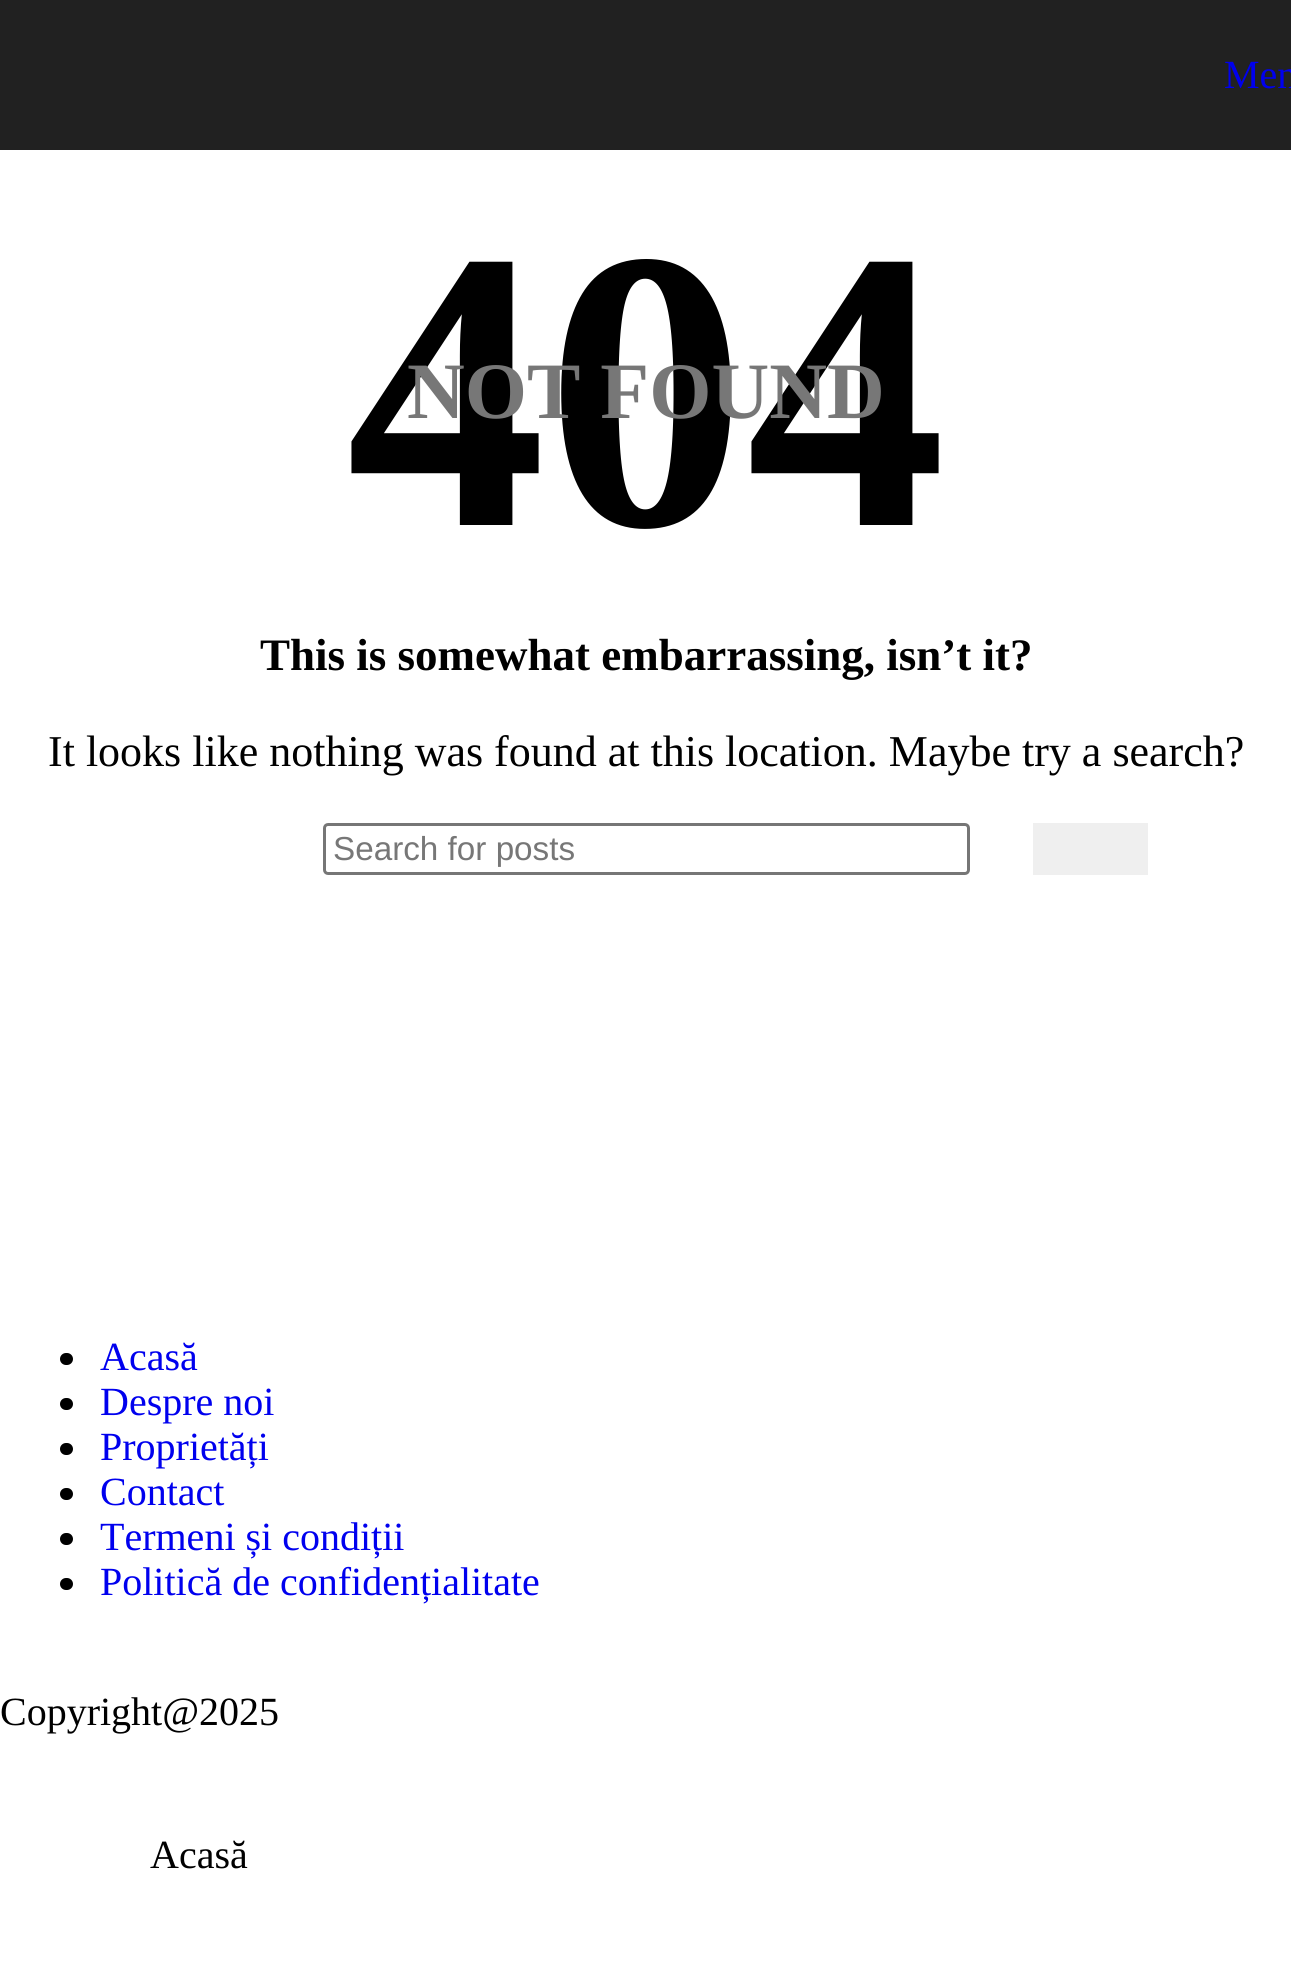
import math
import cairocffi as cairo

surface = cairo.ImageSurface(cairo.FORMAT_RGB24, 1291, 1987)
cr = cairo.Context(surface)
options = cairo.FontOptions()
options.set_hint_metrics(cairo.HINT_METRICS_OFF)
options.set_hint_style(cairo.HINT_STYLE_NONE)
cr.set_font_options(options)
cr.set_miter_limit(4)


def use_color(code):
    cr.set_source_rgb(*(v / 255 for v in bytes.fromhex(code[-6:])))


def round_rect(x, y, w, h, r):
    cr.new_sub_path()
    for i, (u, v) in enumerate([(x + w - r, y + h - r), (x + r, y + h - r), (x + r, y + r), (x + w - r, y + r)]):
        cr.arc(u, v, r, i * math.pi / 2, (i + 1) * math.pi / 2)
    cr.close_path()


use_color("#ffffff")
cr.paint()
use_color("#212121")
cr.rectangle(0, 0, 1291, 150)
cr.fill()
cr.select_font_face("Liberation Serif")
cr.set_font_size(40)
use_color("#0000ee")
cr.move_to(1224, 88)
cr.show_text("Men")
cr.select_font_face("Liberation Serif", cairo.FONT_SLANT_NORMAL, cairo.FONT_WEIGHT_BOLD)
cr.set_font_size(400)
use_color("#000000")
cr.move_to(346, 525)
cr.show_text("404")
cr.set_font_size(80)
use_color("#777777")
cr.move_to(407, 418)
cr.show_text("NOT FOUND")
cr.set_font_size(45)
use_color("#000000")
cr.move_to(260, 670)
cr.show_text("This is somewhat embarrassing, isn’t it?")
cr.select_font_face("Liberation Serif")
cr.set_font_size(44)
cr.move_to(48, 766)
cr.show_text("It looks like nothing was found at this location. Maybe try a search?")
round_rect(324.5, 824.5, 644, 49, 3.5)
use_color("#767676")
cr.set_line_width(3)
cr.stroke()
cr.select_font_face("Liberation Sans")
cr.set_font_size(33.25)
use_color("#777777")
cr.move_to(333, 860)
cr.show_text("Search for posts")
use_color("#efefef")
cr.rectangle(1033, 823, 115, 52)
cr.fill()
use_color("#000000")
round_rect(60, 1353, 13, 12, 6)
cr.fill()
cr.select_font_face("Liberation Serif")
cr.set_font_size(40)
use_color("#0000ee")
cr.move_to(100, 1370)
cr.show_text("Acasă")
use_color("#000000")
round_rect(60, 1398, 13, 12, 6)
cr.fill()
use_color("#0000ee")
cr.move_to(100, 1415)
cr.show_text("Despre noi")
use_color("#000000")
round_rect(60, 1443, 13, 12, 6)
cr.fill()
use_color("#0000ee")
cr.move_to(100, 1460)
cr.show_text("Proprietăți")
use_color("#000000")
round_rect(60, 1488, 13, 12, 6)
cr.fill()
use_color("#0000ee")
cr.move_to(100, 1505)
cr.show_text("Contact")
use_color("#000000")
round_rect(60, 1533, 13, 12, 6)
cr.fill()
use_color("#0000ee")
cr.move_to(100, 1550)
cr.show_text("Termeni și condiții")
use_color("#000000")
round_rect(60, 1578, 13, 12, 6)
cr.fill()
use_color("#0000ee")
cr.move_to(100, 1595)
cr.show_text("Politică de confidențialitate")
use_color("#000000")
cr.move_to(0, 1725)
cr.show_text("Copyright@2025")
cr.move_to(150, 1868)
cr.show_text("Acasă")
surface.write_to_png("result.png")
